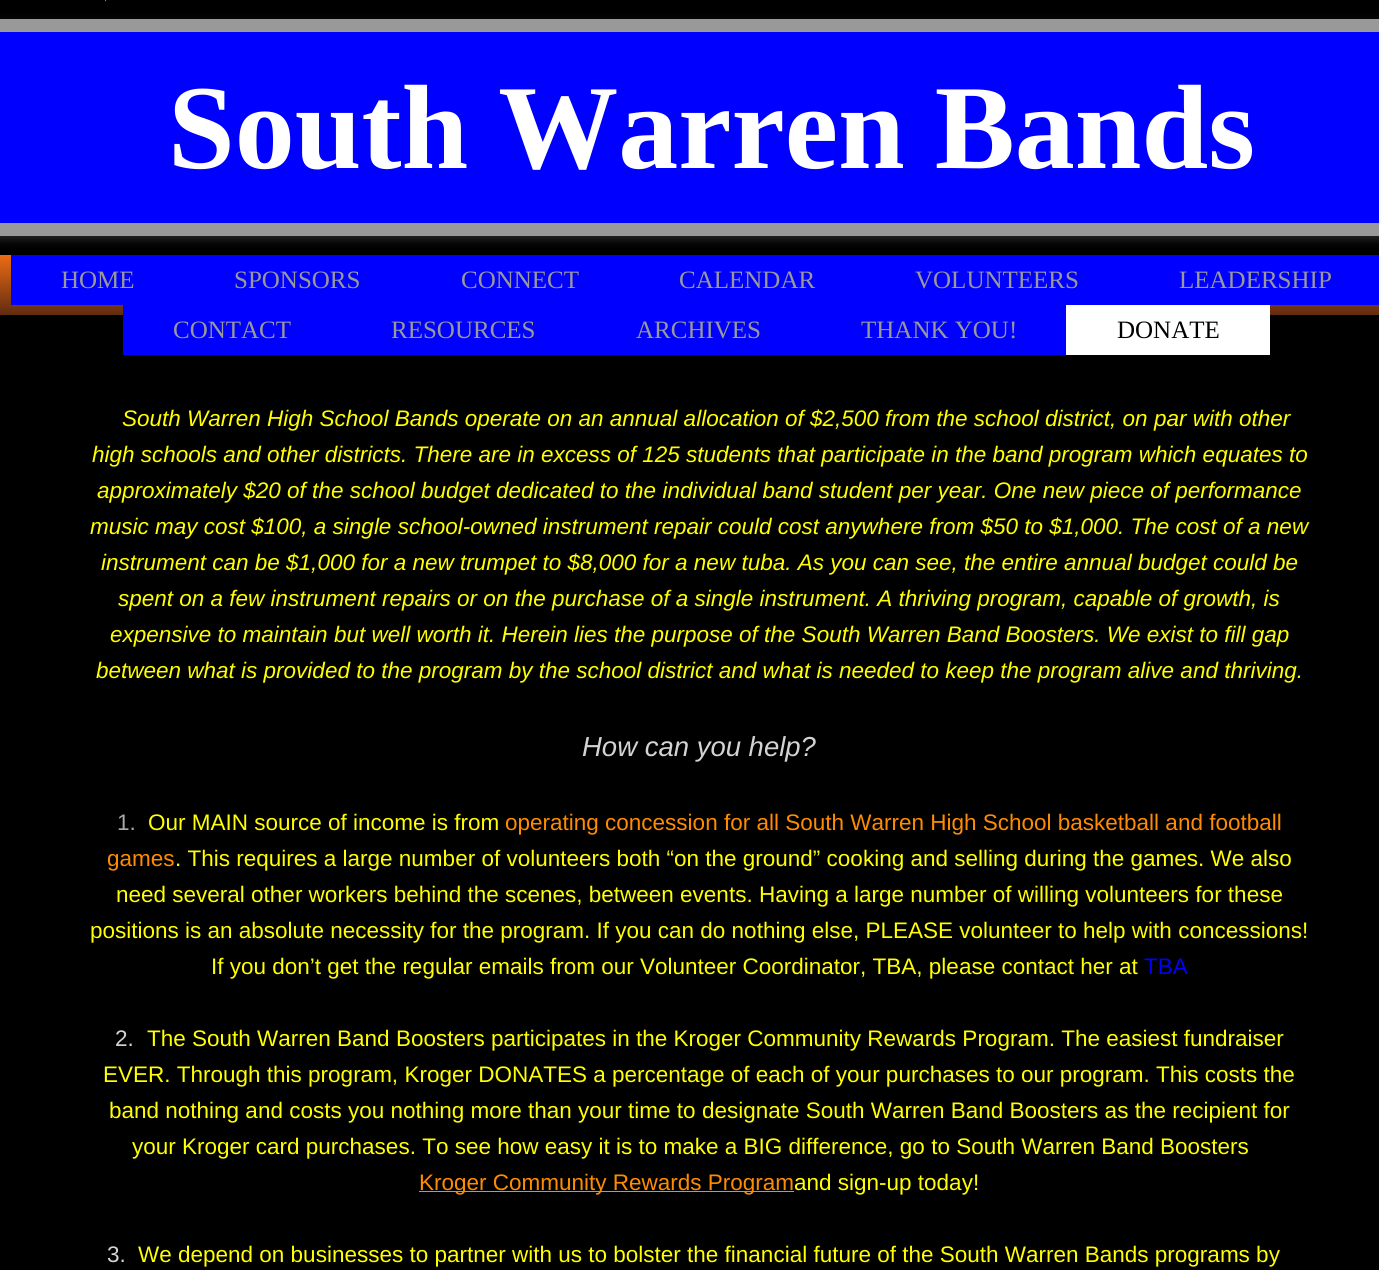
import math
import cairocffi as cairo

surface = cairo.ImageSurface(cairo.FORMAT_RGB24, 1379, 1270)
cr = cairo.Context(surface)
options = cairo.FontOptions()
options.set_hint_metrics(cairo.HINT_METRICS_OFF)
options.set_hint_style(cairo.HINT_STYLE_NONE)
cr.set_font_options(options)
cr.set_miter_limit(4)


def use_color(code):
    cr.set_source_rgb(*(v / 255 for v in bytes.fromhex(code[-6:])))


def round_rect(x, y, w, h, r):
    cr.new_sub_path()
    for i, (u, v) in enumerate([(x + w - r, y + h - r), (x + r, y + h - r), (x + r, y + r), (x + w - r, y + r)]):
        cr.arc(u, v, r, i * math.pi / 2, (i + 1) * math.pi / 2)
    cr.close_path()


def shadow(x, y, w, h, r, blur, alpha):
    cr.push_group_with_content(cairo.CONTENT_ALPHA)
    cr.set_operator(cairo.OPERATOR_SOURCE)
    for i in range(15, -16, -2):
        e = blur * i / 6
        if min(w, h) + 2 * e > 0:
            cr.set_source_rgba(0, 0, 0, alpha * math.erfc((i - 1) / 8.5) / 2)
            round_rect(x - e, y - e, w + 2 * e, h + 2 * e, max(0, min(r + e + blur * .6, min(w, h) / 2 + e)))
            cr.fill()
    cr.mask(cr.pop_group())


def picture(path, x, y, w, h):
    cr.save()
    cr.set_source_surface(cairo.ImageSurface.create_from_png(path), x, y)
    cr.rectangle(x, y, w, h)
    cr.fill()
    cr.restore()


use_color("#000000")
cr.paint()
picture("img1.png", 105, 0, 2, 2)
use_color("#323232")
shadow(-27, 23, 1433, 217, 13, 4.5, 0.75)
use_color("#0000ff")
cr.rectangle(-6.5, 25.5, 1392, 204)
cr.fill_preserve()
use_color("#999999")
cr.set_line_width(13)
cr.stroke()
cr.select_font_face("Liberation Serif", cairo.FONT_SLANT_NORMAL, cairo.FONT_WEIGHT_BOLD)
cr.set_font_size(120)
use_color("#ffffff")
cr.move_to(168, 168)
cr.show_text("South Warren Bands")
gradient = cairo.LinearGradient(697, 255, 697, 315)
gradient.add_color_stop_rgba(0, 0.929, 0.424, 0.082, 1)
gradient.add_color_stop_rgba(1, 0.376, 0.169, 0.063, 1)
cr.set_source(gradient)
cr.rectangle(0, 255, 1379, 60)
cr.fill()
use_color("#0000ff")
cr.rectangle(11, 255, 1368, 50)
cr.fill()
cr.select_font_face("Liberation Serif")
cr.set_font_size(25)
use_color("#999999")
cr.move_to(61, 288)
cr.show_text("HOME")
cr.move_to(234, 288)
cr.show_text("SPONSORS")
cr.move_to(461, 288)
cr.show_text("CONNECT")
cr.move_to(679, 288)
cr.show_text("CALENDAR")
cr.move_to(915, 288)
cr.show_text("VOLUNTEERS")
cr.move_to(1179, 288)
cr.show_text("LEADERSHIP")
use_color("#0000ff")
cr.rectangle(123, 305, 943, 50)
cr.fill()
use_color("#999999")
cr.move_to(173, 338)
cr.show_text("CONTACT")
cr.move_to(391, 338)
cr.show_text("RESOURCES")
cr.move_to(636, 338)
cr.show_text("ARCHIVES")
cr.move_to(861, 338)
cr.show_text("THANK YOU!")
use_color("#ffffff")
cr.rectangle(1066, 305, 204, 50)
cr.fill()
use_color("#000000")
cr.move_to(1117, 338)
cr.show_text("DONATE")
cr.select_font_face("Liberation Sans", cairo.FONT_SLANT_ITALIC)
cr.set_font_size(22.5)
use_color("#ffff00")
cr.move_to(122, 426)
cr.show_text("South Warren High School Bands operate on an annual allocation of $2,500 from the school district, on par with other")
cr.move_to(92, 462)
cr.show_text("high schools and other districts. There are in excess of 125 students that participate in the band program which equates to")
cr.move_to(97, 498)
cr.show_text("approximately $20 of the school budget dedicated to the individual band student per year. One new piece of performance")
cr.move_to(90, 534)
cr.show_text("music may cost $100, a single school-owned instrument repair could cost anywhere from $50 to $1,000. The cost of a new")
cr.move_to(101, 570)
cr.show_text("instrument can be $1,000 for a new trumpet to $8,000 for a new tuba. As you can see, the entire annual budget could be")
cr.move_to(118, 606)
cr.show_text("spent on a few instrument repairs or on the purchase of a single instrument. A thriving program, capable of growth, is")
cr.move_to(110, 642)
cr.show_text("expensive to maintain but well worth it. Herein lies the purpose of the South Warren Band Boosters. We exist to fill gap")
cr.move_to(96, 678)
cr.show_text("between what is provided to the program by the school district and what is needed to keep the program alive and thriving.")
cr.set_font_size(27.5)
use_color("#d3d3d3")
cr.move_to(582, 756)
cr.show_text("How can you help?")
cr.select_font_face("Liberation Sans")
cr.set_font_size(22.5)
use_color("#a9a9a9")
cr.move_to(117, 830)
cr.show_text("1.")
use_color("#ffff00")
cr.move_to(148, 830)
cr.show_text("Our MAIN source of income is from")
use_color("#ff8c00")
cr.move_to(505, 830)
cr.show_text("operating concession for all South Warren High School basketball and football")
cr.move_to(107, 866)
cr.show_text("games")
use_color("#ffff00")
cr.move_to(175, 866)
cr.show_text(". This requires a large number of volunteers both “on the ground” cooking and selling during the games. We also")
cr.move_to(116, 902)
cr.show_text("need several other workers behind the scenes, between events. Having a large number of willing volunteers for these")
cr.move_to(90, 938)
cr.show_text("positions is an absolute necessity for the program. If you can do nothing else, PLEASE volunteer to help with concessions!")
cr.move_to(211, 974)
cr.show_text("If you don’t get the regular emails from our Volunteer Coordinator, TBA, please contact her at")
use_color("#0000ff")
cr.move_to(1144, 974)
cr.show_text("TBA")
use_color("#d3d3d3")
cr.move_to(115, 1046)
cr.show_text("2.")
use_color("#ffff00")
cr.move_to(147, 1046)
cr.show_text("The South Warren Band Boosters participates in the Kroger Community Rewards Program. The easiest fundraiser")
cr.move_to(103, 1082)
cr.show_text("EVER. Through this program, Kroger DONATES a percentage of each of your purchases to our program. This costs the")
cr.move_to(109, 1118)
cr.show_text("band nothing and costs you nothing more than your time to designate South Warren Band Boosters as the recipient for")
cr.move_to(132, 1154)
cr.show_text("your Kroger card purchases. To see how easy it is to make a BIG difference, go to South Warren Band Boosters")
use_color("#ff8c00")
cr.rectangle(419, 1191, 375, 1)
cr.fill()
cr.move_to(419, 1190)
cr.show_text("Kroger Community Rewards Program")
use_color("#ffff00")
cr.move_to(794, 1190)
cr.show_text("and sign-up today!")
use_color("#d3d3d3")
cr.move_to(107, 1262)
cr.show_text("3.")
use_color("#ffff00")
cr.move_to(138, 1262)
cr.show_text("We depend on businesses to partner with us to bolster the financial future of the South Warren Bands programs by")
surface.write_to_png("result.png")
